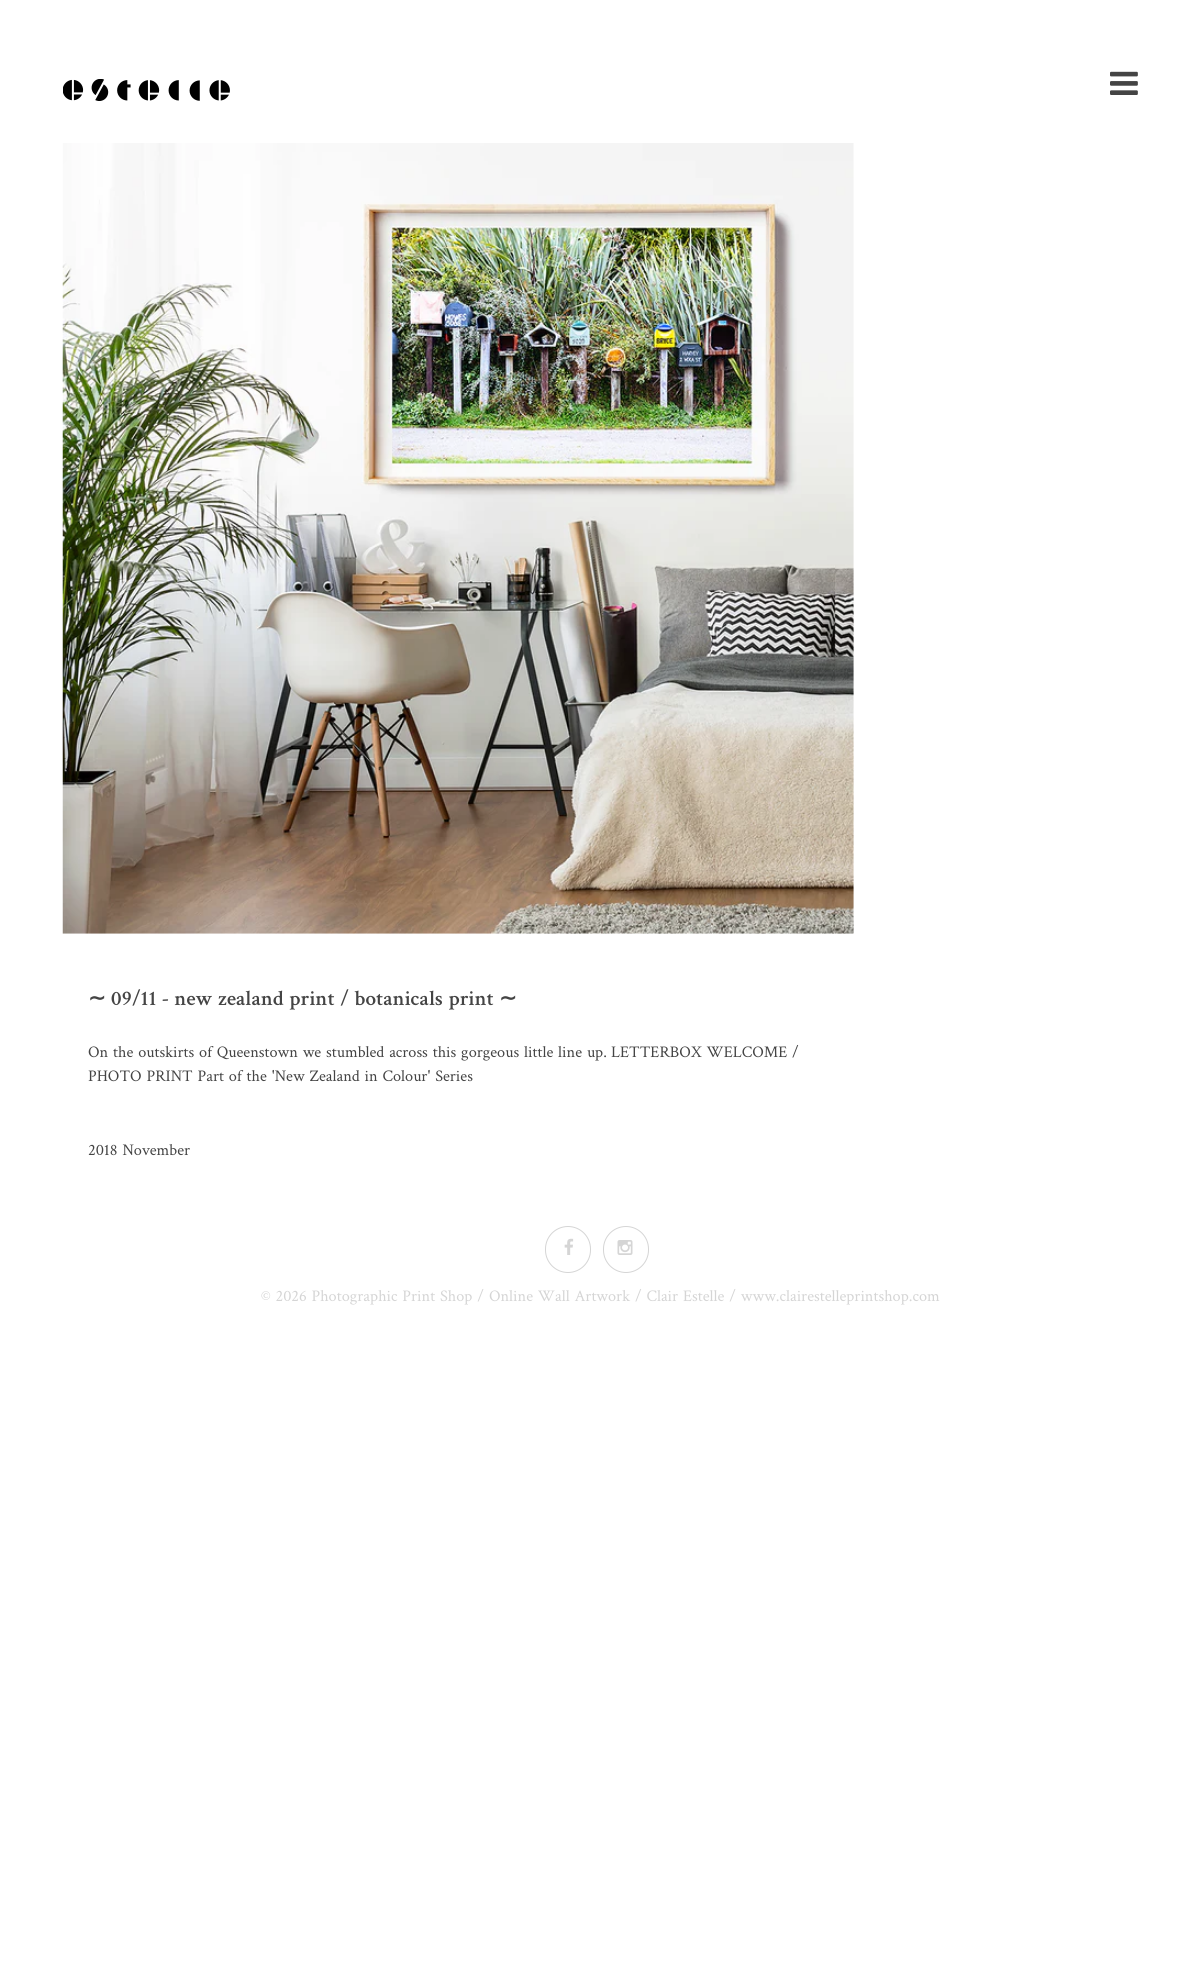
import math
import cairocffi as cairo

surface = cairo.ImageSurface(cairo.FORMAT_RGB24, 1199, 1986)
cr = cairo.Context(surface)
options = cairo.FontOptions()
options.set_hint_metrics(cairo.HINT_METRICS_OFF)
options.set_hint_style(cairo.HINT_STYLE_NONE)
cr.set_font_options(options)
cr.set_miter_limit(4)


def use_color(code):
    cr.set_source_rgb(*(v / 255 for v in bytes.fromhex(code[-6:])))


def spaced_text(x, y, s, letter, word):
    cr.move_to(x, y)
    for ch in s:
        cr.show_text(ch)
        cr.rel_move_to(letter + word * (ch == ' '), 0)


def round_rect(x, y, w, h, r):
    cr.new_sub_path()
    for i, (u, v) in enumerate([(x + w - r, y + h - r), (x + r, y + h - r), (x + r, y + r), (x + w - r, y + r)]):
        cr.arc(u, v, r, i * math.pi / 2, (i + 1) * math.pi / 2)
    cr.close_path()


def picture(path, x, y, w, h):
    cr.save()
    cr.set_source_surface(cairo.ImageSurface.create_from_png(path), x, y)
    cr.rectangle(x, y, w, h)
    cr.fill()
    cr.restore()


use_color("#ffffff")
cr.paint()
picture("img1.png", 63, 79, 167, 22)
picture("img2.png", 1110, 71, 28, 24)
picture("img3.png", 62, 143, 792, 791)
cr.select_font_face("DejaVu Sans", cairo.FONT_SLANT_NORMAL, cairo.FONT_WEIGHT_BOLD)
cr.set_font_size(21.25)
use_color("#444444")
cr.move_to(88, 1005)
cr.show_text("∼")
cr.select_font_face("Crimson Text SemiBold")
spaced_text(111, 1005, "09/11 - new zealand print / botanicals print", 0, 1.25)
cr.select_font_face("DejaVu Sans", cairo.FONT_SLANT_NORMAL, cairo.FONT_WEIGHT_BOLD)
cr.move_to(499, 1005)
cr.show_text("∼")
cr.select_font_face("Crimson Text")
cr.set_font_size(16.25)
spaced_text(88, 1057, "On the outskirts of Queenstown we stumbled across this gorgeous little line up.", 0, 1.25)
spaced_text(611, 1057, "LETTERBOX WELCOME", 0, 1.25)
cr.move_to(792, 1057)
cr.show_text("/")
spaced_text(88, 1081, "PHOTO PRINT Part of the 'New Zealand in Colour' Series", 0, 1.25)
spaced_text(88, 1155, "2018 November", 0, 1.25)
round_rect(545.5, 1226.5, 45, 46, 22.5)
use_color("#d5d5d5")
cr.set_line_width(1)
cr.stroke()
picture("img4.png", 564, 1238, 10, 17)
round_rect(603.5, 1226.5, 45, 46, 22.5)
cr.stroke()
picture("img5.png", 617, 1240, 16, 15)
spaced_text(261, 1301, "© 2026 Photographic Print Shop / Online Wall Artwork / Clair Estelle / www.clairestelleprintshop.com", 0, 1.25)
surface.write_to_png("result.png")
